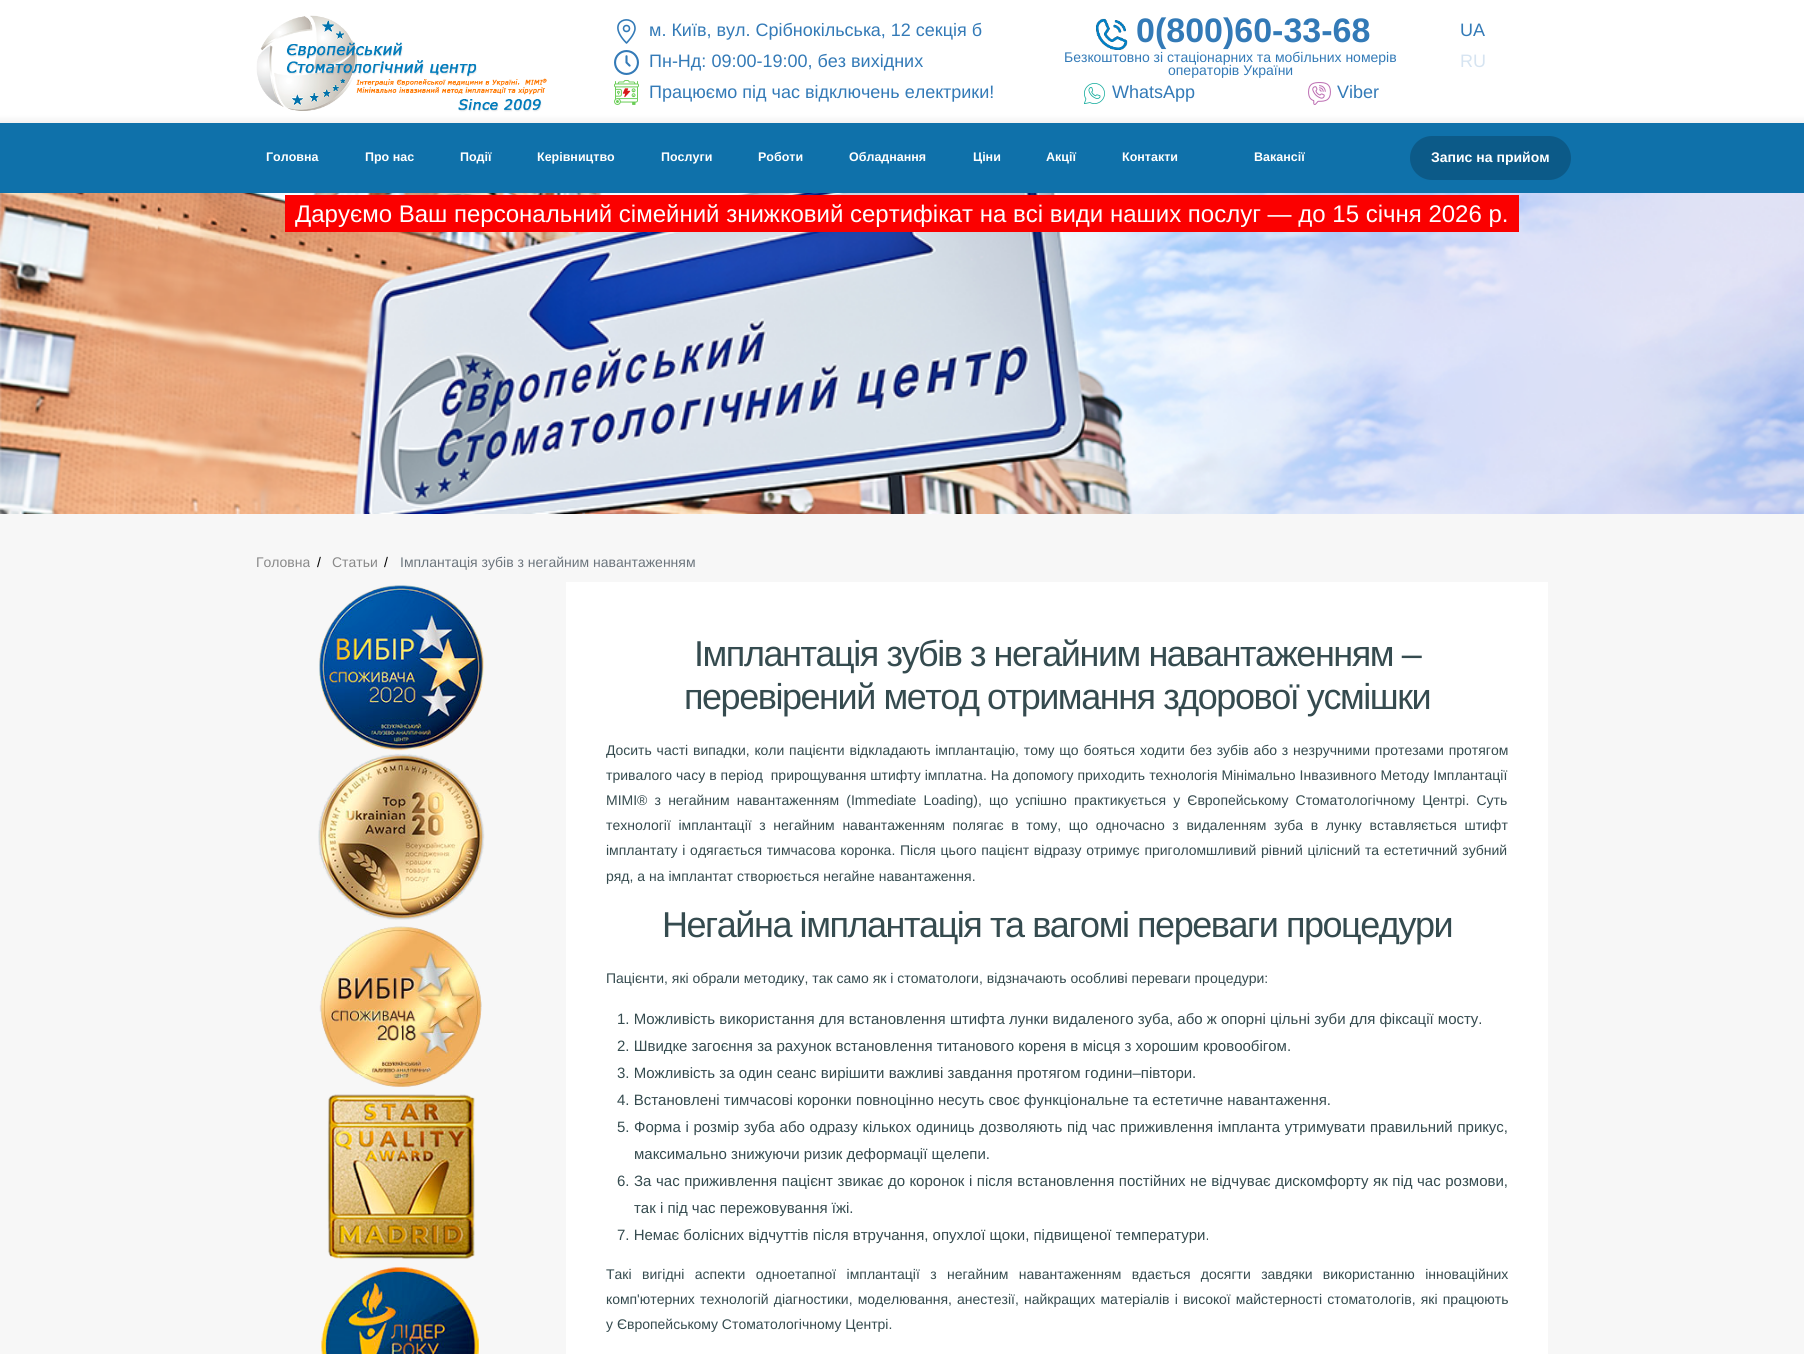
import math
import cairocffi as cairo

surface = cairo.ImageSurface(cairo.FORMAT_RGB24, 1804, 1354)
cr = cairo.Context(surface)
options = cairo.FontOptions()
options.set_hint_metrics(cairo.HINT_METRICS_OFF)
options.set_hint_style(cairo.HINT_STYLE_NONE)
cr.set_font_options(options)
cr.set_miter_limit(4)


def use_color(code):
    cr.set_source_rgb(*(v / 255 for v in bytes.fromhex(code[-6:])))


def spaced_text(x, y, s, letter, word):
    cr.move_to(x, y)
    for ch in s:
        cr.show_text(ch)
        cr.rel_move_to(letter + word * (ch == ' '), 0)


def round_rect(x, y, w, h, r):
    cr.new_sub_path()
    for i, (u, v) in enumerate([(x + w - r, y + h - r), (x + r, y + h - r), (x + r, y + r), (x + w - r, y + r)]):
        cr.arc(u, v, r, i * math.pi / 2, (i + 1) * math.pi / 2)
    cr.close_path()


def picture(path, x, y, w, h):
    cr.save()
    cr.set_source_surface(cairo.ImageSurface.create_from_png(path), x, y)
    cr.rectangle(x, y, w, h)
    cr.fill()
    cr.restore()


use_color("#f7f7f7")
cr.paint()
use_color("#ffffff")
cr.rectangle(0, 0, 1804, 115)
cr.fill()
picture("img1.png", 256, 15, 291, 97)
cr.select_font_face("Liberation Sans")
cr.set_font_size(18)
use_color("#337ab7")
cr.move_to(649, 36)
cr.show_text("м. Київ, вул. Срібнокільська, 12 секція б")
cr.new_path()
cr.move_to(635, 28.5)
cr.curve_to(635, 12.5, 603, 19.5, 626.5, 43)
cr.curve_to(626.5, 43, 635, 34.5, 635, 28.5)
cr.close_path()
cr.set_line_width(1.6)
cr.set_line_join(cairo.LINE_JOIN_ROUND)
cr.stroke()
cr.arc(626.5, 28.5, 3, 0, 2 * math.pi)
cr.set_line_join(cairo.LINE_JOIN_MITER)
cr.stroke()
picture("img2.png", 614, 50, 25, 25)
cr.move_to(649, 67)
cr.show_text("Пн-Нд: 09:00-19:00, без вихідних")
picture("img3.png", 614, 80, 25, 25)
cr.move_to(649, 98)
cr.show_text("Працюємо під час відключень електрики!")
picture("img4.png", 1096, 18, 32, 32)
cr.select_font_face("Liberation Sans", cairo.FONT_SLANT_NORMAL, cairo.FONT_WEIGHT_BOLD)
cr.set_font_size(34)
cr.move_to(1136, 42)
cr.show_text("0(800)60-33-68")
cr.select_font_face("Liberation Sans")
cr.set_font_size(14)
cr.move_to(1064, 62)
cr.show_text("Безкоштовно зі стаціонарних та мобільних номерів")
cr.move_to(1168, 75)
cr.show_text("операторів України")
picture("img5.png", 1084, 83, 21, 21)
cr.set_font_size(18)
cr.move_to(1112, 98)
cr.show_text("WhatsApp")
picture("img6.png", 1308, 82, 23, 23)
cr.move_to(1337, 98)
cr.show_text("Viber")
cr.move_to(1460, 36)
cr.show_text("UA")
use_color("#d6e4f1")
cr.move_to(1460, 67)
cr.show_text("RU")
use_color("#0f71aa")
cr.rectangle(0, 123, 1804, 70)
cr.fill()
gradient = cairo.LinearGradient(902, 115, 902, 123)
gradient.add_color_stop_rgba(0, 1, 1, 1, 1)
gradient.add_color_stop_rgba(1, 0.949, 0.949, 0.949, 1)
cr.set_source(gradient)
cr.rectangle(0, 115, 1804, 8)
cr.fill()
cr.select_font_face("Liberation Sans", cairo.FONT_SLANT_NORMAL, cairo.FONT_WEIGHT_BOLD)
cr.set_font_size(12.5)
use_color("#ffffff")
cr.move_to(266, 161)
cr.show_text("Головна")
cr.move_to(365, 161)
cr.show_text("Про нас")
cr.move_to(460, 161)
cr.show_text("Події")
cr.move_to(537, 161)
cr.show_text("Керівництво")
cr.move_to(661, 161)
cr.show_text("Послуги")
cr.move_to(758, 161)
cr.show_text("Роботи")
cr.move_to(849, 161)
cr.show_text("Обладнання")
cr.move_to(973, 161)
cr.show_text("Ціни")
cr.move_to(1046, 161)
cr.show_text("Акції")
cr.move_to(1122, 161)
cr.show_text("Контакти")
cr.move_to(1254, 161)
cr.show_text("Вакансії")
use_color("#0c5a88")
round_rect(1410, 136, 161, 44, 22)
cr.fill()
cr.set_font_size(14)
use_color("#ffffff")
cr.move_to(1431, 162)
cr.show_text("Запис на прийом")
picture("img7.png", 0, 193, 1804, 321)
use_color("#fb0000")
cr.rectangle(285, 195, 1234, 37)
cr.fill()
cr.select_font_face("Liberation Sans")
cr.set_font_size(24)
use_color("#ffffff")
cr.move_to(295, 222)
cr.show_text("Даруємо Ваш персональний сімейний знижковий сертифікат на всі види наших послуг — до 15 січня 2026 р.")
cr.set_font_size(14)
use_color("#898989")
cr.move_to(256, 567)
cr.show_text("Головна")
use_color("#000000")
cr.move_to(317, 567)
cr.show_text("/")
use_color("#898989")
cr.move_to(332, 567)
cr.show_text("Статьи")
use_color("#000000")
cr.move_to(384, 567)
cr.show_text("/")
use_color("#6c757d")
cr.move_to(400, 567)
cr.show_text("Імплантація зубів з негайним навантаженням")
picture("img8.png", 318, 585, 166, 166)
picture("img9.png", 318, 753, 167, 167)
picture("img10.png", 319, 926, 163, 161)
picture("img11.png", 327, 1094, 148, 165)
picture("img12.png", 321, 1267, 158, 87)
use_color("#ffffff")
cr.rectangle(566, 582, 982, 772)
cr.fill()
cr.set_font_size(36)
use_color("#354b4f")
spaced_text(694, 666, "Імплантація зубів з негайним навантаженням –", -1.45, 0)
spaced_text(684, 709, "перевірений метод отримання здорової усмішки", -1.45, 0)
cr.set_font_size(14)
spaced_text(606, 755, "Досить часті випадки, коли пацієнти відкладають імплантацію, тому що бояться ходити без зубів або з незручними протезами протягом", 0, 0.9)
spaced_text(606, 780, "тривалого часу в період  прирощування штифту імплатна. На допомогу приходить технологія Мінімально Інвазивного Методу Імплантації", 0, 0.1)
spaced_text(606, 805, "MIMI® з негайним навантаженням (Immediate Loading), що успішно практикується у Європейському Стоматологічному Центрі. Суть", 0, 3.25)
spaced_text(606, 830, "технології імплантації з негайним навантаженням полягає в тому, що одночасно з видаленням зуба в лунку вставляється штифт", 0, 3.75)
spaced_text(606, 855, "імплантату і одягається тимчасова коронка. Після цього пацієнт відразу отримує приголомшливий рівний цілісний та естетичний зубний", 0, 0.8)
cr.move_to(606, 881)
cr.show_text("ряд, а на імплантат створюється негайне навантаження.")
cr.set_font_size(36)
spaced_text(662, 937, "Негайна імплантація та вагомі переваги процедури", -1.45, 0)
cr.set_font_size(14)
cr.move_to(606, 983)
cr.show_text("Пацієнти, які обрали методику, так само як і стоматологи, відзначають особливі переваги процедури:")
cr.set_font_size(15)
cr.move_to(617, 1024)
cr.show_text("1. Можливість використання для встановлення штифта лунки видаленого зуба, або ж опорні цільні зуби для фіксації мосту.")
cr.move_to(617, 1051)
cr.show_text("2. Швидке загоєння за рахунок встановлення титанового кореня в місця з хорошим кровообігом.")
cr.move_to(617, 1078)
cr.show_text("3. Можливість за один сеанс вирішити важливі завдання протягом години–півтори.")
cr.move_to(617, 1105)
cr.show_text("4. Встановлені тимчасові коронки повноцінно несуть своє функціональне та естетичне навантаження.")
cr.move_to(617, 1132)
cr.show_text("5.")
spaced_text(634, 1132, "Форма і розмір зуба або одразу кількох одиниць дозволяють під час приживлення імпланта утримувати правильний прикус,", 0, 0.5)
cr.move_to(634, 1159)
cr.show_text("максимально знижуючи ризик деформації щелепи.")
cr.move_to(617, 1186)
cr.show_text("6.")
spaced_text(634, 1186, "За час приживлення пацієнт звикає до коронок і після встановлення постійних не відчуває дискомфорту як під час розмови,", 0, 0.4)
cr.move_to(634, 1213)
cr.show_text("так і під час пережовування їжі.")
cr.move_to(617, 1240)
cr.show_text("7. Немає болісних відчуттів після втручання, опухлої щоки, підвищеної температури.")
cr.set_font_size(14)
spaced_text(606, 1279, "Такі вигідні аспекти одноетапної імплантації з негайним навантаженням вдається досягти завдяки використанню інноваційних", 0, 6.5)
spaced_text(606, 1304, "комп'ютерних технологій діагностики, моделювання, анестезії, найкращих матеріалів і високої майстерності стоматологів, які працюють", 0, 1.25)
cr.move_to(606, 1329)
cr.show_text("у Європейському Стоматологічному Центрі.")
surface.write_to_png("result.png")
